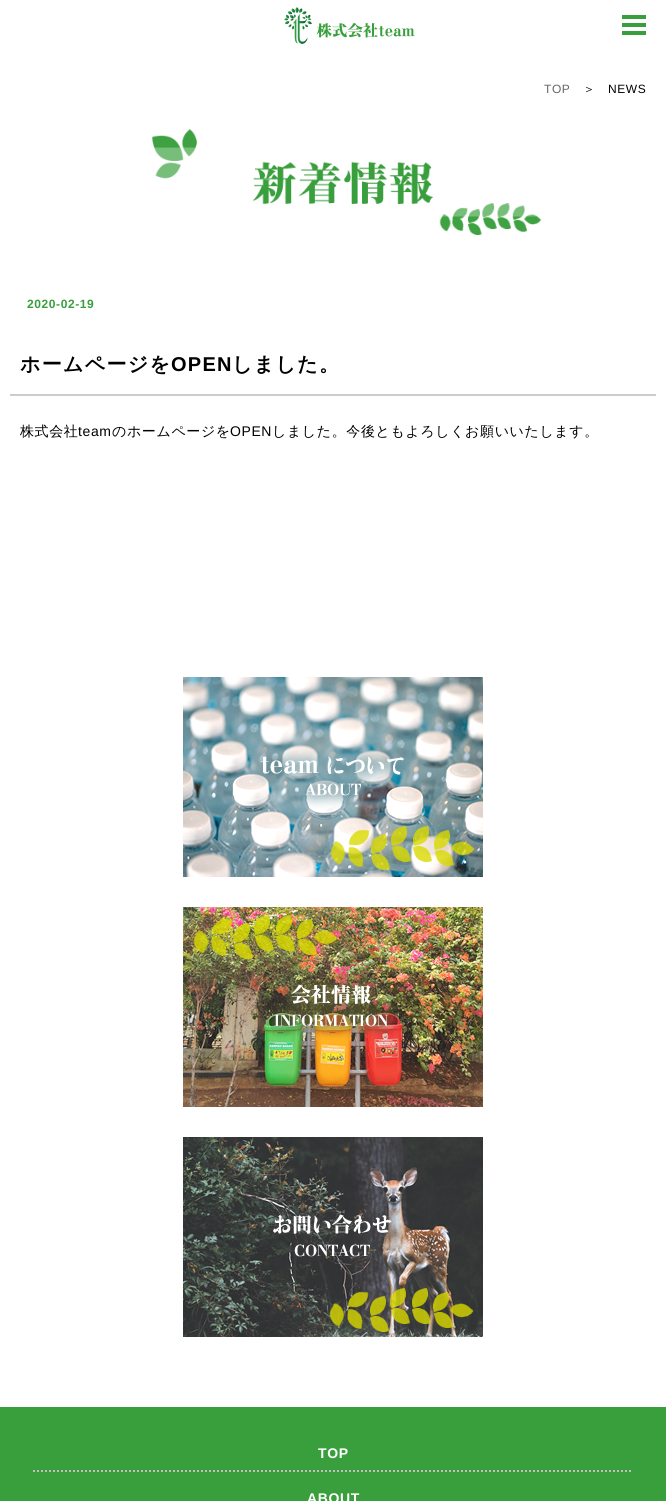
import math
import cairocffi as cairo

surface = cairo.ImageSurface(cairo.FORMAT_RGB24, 666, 1501)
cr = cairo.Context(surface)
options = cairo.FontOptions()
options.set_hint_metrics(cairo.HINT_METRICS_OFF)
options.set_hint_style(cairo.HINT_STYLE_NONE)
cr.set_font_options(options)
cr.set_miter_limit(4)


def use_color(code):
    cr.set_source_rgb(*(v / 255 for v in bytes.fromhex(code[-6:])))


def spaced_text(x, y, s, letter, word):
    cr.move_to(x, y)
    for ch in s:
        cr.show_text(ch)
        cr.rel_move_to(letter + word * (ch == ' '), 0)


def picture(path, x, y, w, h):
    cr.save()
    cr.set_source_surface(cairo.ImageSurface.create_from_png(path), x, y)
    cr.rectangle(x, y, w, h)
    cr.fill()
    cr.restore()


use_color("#ffffff")
cr.paint()
picture("img1.png", 284, 7, 131, 37)
use_color("#399f3d")
cr.rectangle(622, 15, 24, 20)
cr.fill()
use_color("#ffffff")
cr.rectangle(622, 19, 24, 4)
cr.fill()
cr.rectangle(622, 27, 24, 4)
cr.fill()
cr.select_font_face("Liberation Sans")
cr.set_font_size(12)
use_color("#666666")
spaced_text(544, 93, "TOP", 0.6, 0)
cr.select_font_face("WenQuanYi Zen Hei Medium")
use_color("#000000")
spaced_text(583, 93, "＞", 0.6, 0)
cr.select_font_face("Liberation Sans")
spaced_text(608, 93, "NEWS", 0.6, 0)
picture("img2.png", 152, 129, 390, 106)
cr.select_font_face("Liberation Sans", cairo.FONT_SLANT_NORMAL, cairo.FONT_WEIGHT_BOLD)
use_color("#399f3d")
spaced_text(27, 308, "2020-02-19", 0.6, 0)
use_color("#cccccc")
cr.rectangle(10, 394, 646, 2)
cr.fill()
cr.select_font_face("WenQuanYi Zen Hei", cairo.FONT_SLANT_NORMAL, cairo.FONT_WEIGHT_BOLD)
cr.set_font_size(20)
use_color("#000000")
spaced_text(20, 371, "ホームページを", 1.25, 0)
cr.select_font_face("Liberation Sans", cairo.FONT_SLANT_NORMAL, cairo.FONT_WEIGHT_BOLD)
spaced_text(171, 371, "OPEN", 1.25, 0)
cr.select_font_face("WenQuanYi Zen Hei", cairo.FONT_SLANT_NORMAL, cairo.FONT_WEIGHT_BOLD)
spaced_text(232, 371, "しました。", 1.25, 0)
cr.select_font_face("WenQuanYi Zen Hei Medium")
cr.set_font_size(14)
spaced_text(20, 436, "株式会社", 0.6, 0)
cr.select_font_face("Liberation Sans")
spaced_text(78, 436, "team", 0.6, 0)
cr.select_font_face("WenQuanYi Zen Hei Medium")
spaced_text(112, 436, "のホームページを", 0.6, 0)
cr.select_font_face("Liberation Sans")
spaced_text(230, 436, "OPEN", 0.6, 0)
cr.select_font_face("WenQuanYi Zen Hei Medium")
spaced_text(272, 436, "しました。今後ともよろしくお願いいたします。", 0.6, 0)
picture("img3.png", 183, 677, 300, 200)
picture("img4.png", 183, 907, 300, 200)
picture("img5.png", 183, 1137, 300, 200)
use_color("#399f3d")
cr.rectangle(0, 1407, 666, 94)
cr.fill()
cr.new_path()
cr.move_to(33, 1471)
cr.line_to(633, 1471)
use_color("#c0c0c0")
cr.set_dash([2, 2])
cr.stroke()
cr.select_font_face("Liberation Sans", cairo.FONT_SLANT_NORMAL, cairo.FONT_WEIGHT_BOLD)
use_color("#ffffff")
spaced_text(318, 1458, "TOP", 0.6, 0)
spaced_text(307, 1503, "ABOUT", 0.6, 0)
surface.write_to_png("result.png")
